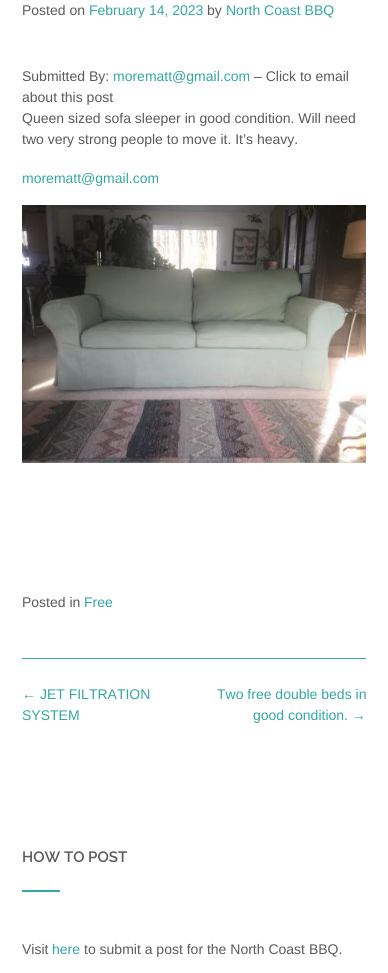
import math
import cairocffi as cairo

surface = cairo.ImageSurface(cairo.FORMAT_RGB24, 388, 973)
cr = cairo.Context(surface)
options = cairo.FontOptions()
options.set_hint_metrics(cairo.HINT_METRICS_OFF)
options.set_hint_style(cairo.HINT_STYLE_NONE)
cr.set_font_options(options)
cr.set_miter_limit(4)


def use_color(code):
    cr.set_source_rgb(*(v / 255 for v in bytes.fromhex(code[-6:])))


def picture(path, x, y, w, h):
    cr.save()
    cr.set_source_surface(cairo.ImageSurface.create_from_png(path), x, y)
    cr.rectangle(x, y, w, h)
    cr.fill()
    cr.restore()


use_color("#ffffff")
cr.paint()
use_color("#33a7a4")
cr.rectangle(22, 658, 344, 1)
cr.fill()
cr.select_font_face("Liberation Sans")
cr.set_font_size(14)
use_color("#5a5a5a")
cr.move_to(22, 15)
cr.show_text("Posted on")
use_color("#33a7a4")
cr.move_to(89, 15)
cr.show_text("February 14, 2023")
use_color("#5a5a5a")
cr.move_to(207, 15)
cr.show_text("by")
use_color("#33a7a4")
cr.move_to(226, 15)
cr.show_text("North Coast BBQ")
use_color("#5a5a5a")
cr.move_to(22, 81)
cr.show_text("Submitted By:")
use_color("#33a7a4")
cr.move_to(113, 81)
cr.show_text("morematt@gmail.com")
use_color("#5a5a5a")
cr.move_to(254, 81)
cr.show_text("– Click to email")
cr.move_to(22, 102)
cr.show_text("about this post")
cr.move_to(22, 123)
cr.show_text("Queen sized sofa sleeper in good condition. Will need")
cr.move_to(22, 144)
cr.show_text("two very strong people to move it. It’s heavy.")
use_color("#33a7a4")
cr.move_to(22, 183)
cr.show_text("morematt@gmail.com")
picture("img1.png", 22, 205, 344, 258)
use_color("#5a5a5a")
cr.move_to(22, 607)
cr.show_text("Posted in")
use_color("#33a7a4")
cr.move_to(84, 607)
cr.show_text("Free")
cr.move_to(22, 699)
cr.show_text("← JET FILTRATION")
cr.move_to(22, 720)
cr.show_text("SYSTEM")
cr.move_to(217, 699)
cr.show_text("Two free double beds in")
cr.move_to(253, 720)
cr.show_text("good condition. →")
cr.select_font_face("Raleway SemiBold")
cr.set_font_size(15)
use_color("#5a5a5a")
cr.move_to(22, 862)
cr.show_text("HOW TO POST")
use_color("#33a7a4")
cr.rectangle(22, 890, 38, 2)
cr.fill()
cr.select_font_face("Liberation Sans")
cr.set_font_size(14)
use_color("#5a5a5a")
cr.move_to(22, 954)
cr.show_text("Visit")
use_color("#33a7a4")
cr.move_to(52, 954)
cr.show_text("here")
use_color("#5a5a5a")
cr.move_to(84, 954)
cr.show_text("to submit a post for the North Coast BBQ.")
surface.write_to_png("result.png")
